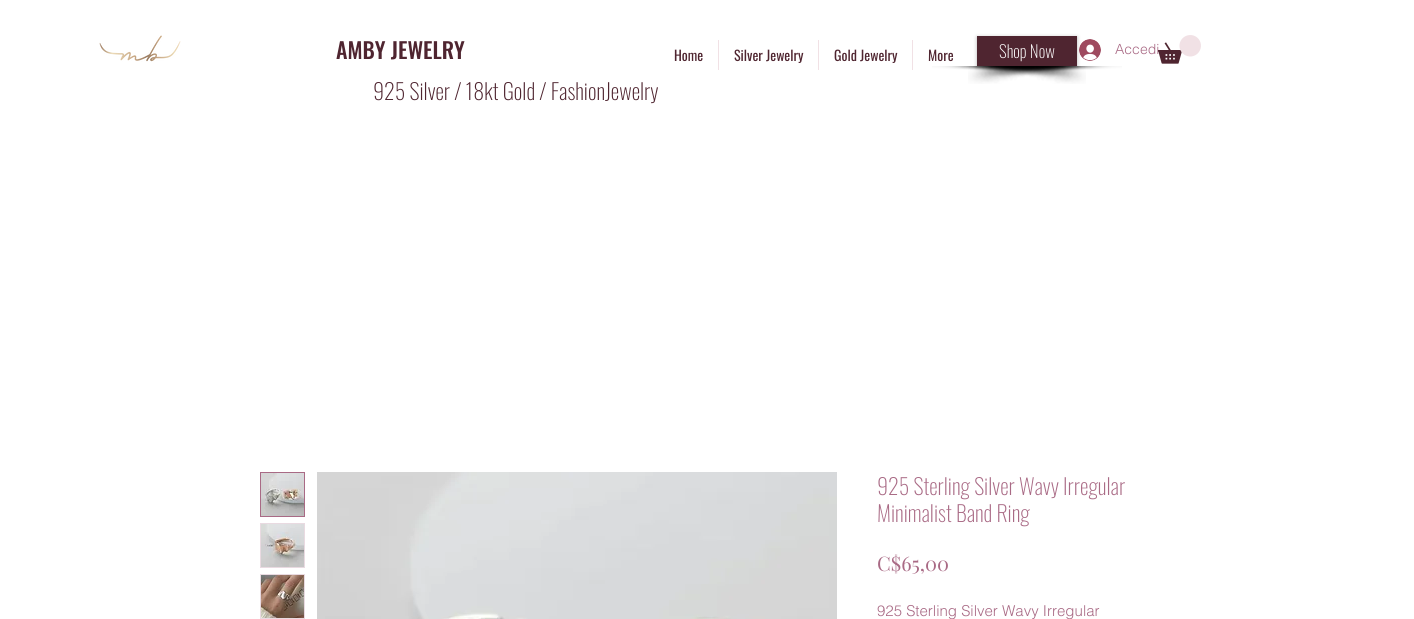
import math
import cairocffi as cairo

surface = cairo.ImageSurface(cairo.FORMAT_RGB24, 1414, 619)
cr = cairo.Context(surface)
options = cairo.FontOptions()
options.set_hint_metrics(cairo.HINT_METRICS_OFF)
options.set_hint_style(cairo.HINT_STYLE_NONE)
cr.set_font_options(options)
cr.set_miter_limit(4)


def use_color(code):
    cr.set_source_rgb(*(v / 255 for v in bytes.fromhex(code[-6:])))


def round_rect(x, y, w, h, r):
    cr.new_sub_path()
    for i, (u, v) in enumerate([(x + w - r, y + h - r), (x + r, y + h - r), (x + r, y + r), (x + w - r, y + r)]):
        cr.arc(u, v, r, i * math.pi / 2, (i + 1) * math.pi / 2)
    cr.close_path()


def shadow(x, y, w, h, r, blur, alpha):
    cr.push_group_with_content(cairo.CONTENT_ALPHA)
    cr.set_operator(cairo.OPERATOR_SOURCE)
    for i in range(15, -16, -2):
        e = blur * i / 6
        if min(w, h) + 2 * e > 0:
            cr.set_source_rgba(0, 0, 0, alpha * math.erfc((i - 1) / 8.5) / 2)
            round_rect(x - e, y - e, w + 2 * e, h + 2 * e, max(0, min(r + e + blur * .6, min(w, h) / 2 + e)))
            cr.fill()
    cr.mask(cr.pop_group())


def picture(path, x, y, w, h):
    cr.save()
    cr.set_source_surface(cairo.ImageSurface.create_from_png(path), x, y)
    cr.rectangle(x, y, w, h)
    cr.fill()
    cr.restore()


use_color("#ffffff")
cr.paint()
picture("img1.png", 99, 35, 82, 27)
cr.select_font_face("Oswald Medium")
cr.set_font_size(22)
use_color("#4f2530")
cr.move_to(336, 59)
cr.show_text("AMBY JEWELRY")
cr.select_font_face("Oswald")
cr.set_font_size(14)
cr.move_to(674, 61)
cr.show_text("Home")
use_color("#f1e1e5")
cr.rectangle(718, 40, 1, 30)
cr.fill()
use_color("#4f2530")
cr.move_to(734, 61)
cr.show_text("Silver Jewelry")
use_color("#f1e1e5")
cr.rectangle(818, 40, 1, 30)
cr.fill()
use_color("#4f2530")
cr.move_to(834, 61)
cr.show_text("Gold Jewelry")
use_color("#f1e1e5")
cr.rectangle(912, 40, 1, 30)
cr.fill()
use_color("#4f2530")
cr.move_to(928, 61)
cr.show_text("More")
picture("img3.png", 968, 66, 154, 18)
picture("img2.png", 932, 66, 154, 18)
picture("img4.png", 1079, 39, 22, 22)
use_color("#000000")
shadow(977, 37, 100, 30, 0, 2, 0.29)
use_color("#4f2530")
cr.rectangle(977, 36, 100, 30)
cr.fill()
cr.select_font_face("Oswald ExtraLight")
cr.set_font_size(17)
use_color("#ffffff")
cr.move_to(999, 58)
cr.show_text("Shop Now")
cr.select_font_face("helvetica Light")
cr.set_font_size(14)
use_color("#a96a85")
cr.move_to(1115, 54)
cr.show_text("Accedi")
picture("img5.png", 1158, 35, 43, 29)
cr.select_font_face("Oswald ExtraLight")
cr.set_font_size(22)
use_color("#4f2530")
cr.move_to(373, 100)
cr.show_text("925 Silver / 18kt Gold / FashionJewelry")
cr.rectangle(260.5, 472.5, 44, 44)
use_color("#a96a85")
cr.set_line_width(1)
cr.stroke()
picture("img6.png", 261, 473, 43, 43)
use_color("#e9dae1")
cr.rectangle(260, 523, 45, 45)
cr.fill()
picture("img7.png", 261, 524, 43, 43)
cr.rectangle(260, 574, 45, 45)
cr.fill()
picture("img8.png", 261, 575, 43, 43)
picture("img9.png", 317, 472, 520, 147)
use_color("#a96a85")
cr.move_to(877, 495)
cr.show_text("925 Sterling Silver Wavy Irregular")
cr.move_to(877, 522)
cr.show_text("Minimalist Band Ring")
cr.select_font_face("Playfair Display")
cr.set_font_size(20)
cr.move_to(877, 571)
cr.show_text("C$65,00")
cr.select_font_face("helvetica Light")
cr.set_font_size(15)
cr.move_to(877, 616)
cr.show_text("925 Sterling Silver Wavy Irregular")
surface.write_to_png("result.png")
